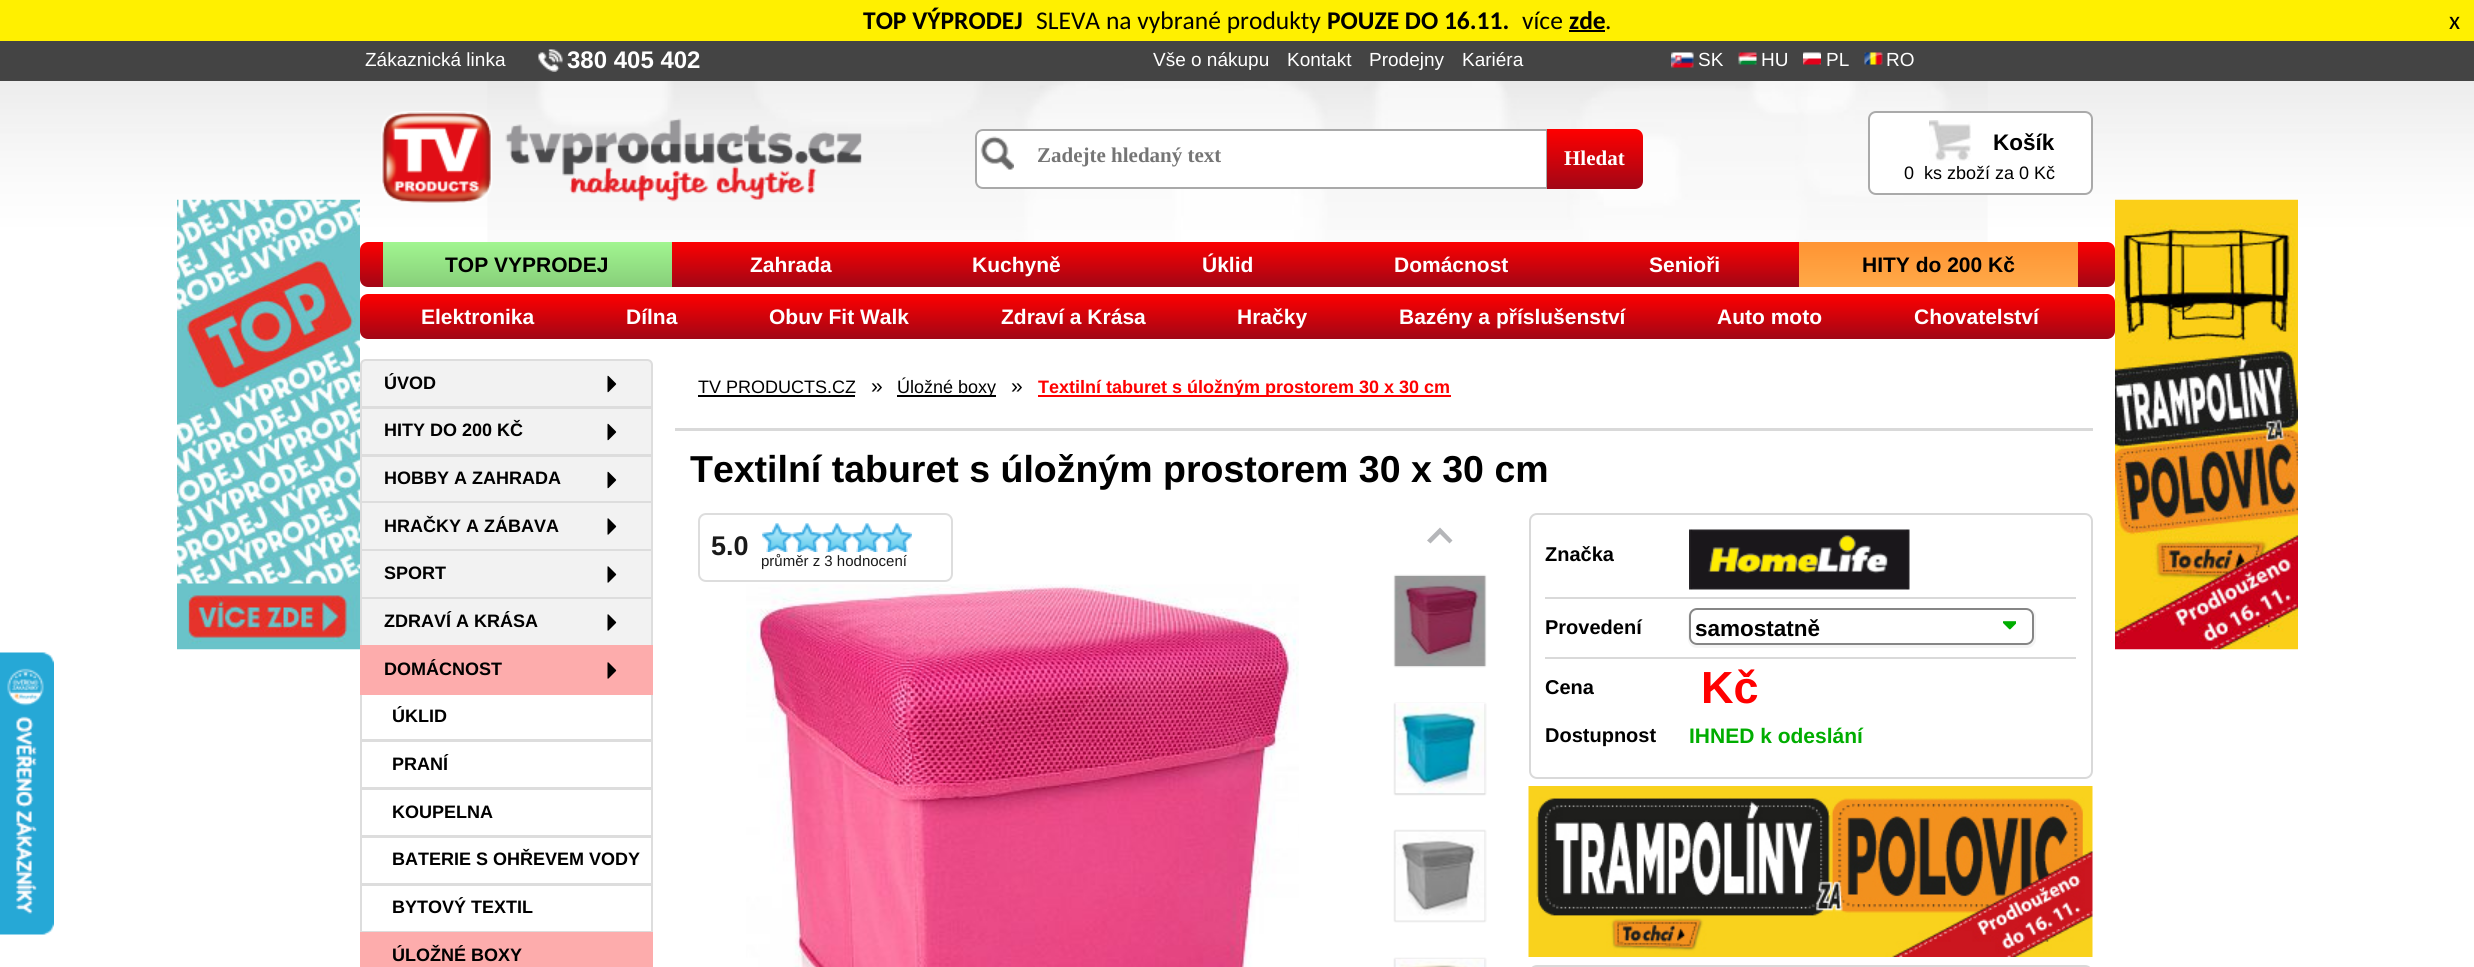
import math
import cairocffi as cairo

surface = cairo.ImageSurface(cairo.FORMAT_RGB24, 2474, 967)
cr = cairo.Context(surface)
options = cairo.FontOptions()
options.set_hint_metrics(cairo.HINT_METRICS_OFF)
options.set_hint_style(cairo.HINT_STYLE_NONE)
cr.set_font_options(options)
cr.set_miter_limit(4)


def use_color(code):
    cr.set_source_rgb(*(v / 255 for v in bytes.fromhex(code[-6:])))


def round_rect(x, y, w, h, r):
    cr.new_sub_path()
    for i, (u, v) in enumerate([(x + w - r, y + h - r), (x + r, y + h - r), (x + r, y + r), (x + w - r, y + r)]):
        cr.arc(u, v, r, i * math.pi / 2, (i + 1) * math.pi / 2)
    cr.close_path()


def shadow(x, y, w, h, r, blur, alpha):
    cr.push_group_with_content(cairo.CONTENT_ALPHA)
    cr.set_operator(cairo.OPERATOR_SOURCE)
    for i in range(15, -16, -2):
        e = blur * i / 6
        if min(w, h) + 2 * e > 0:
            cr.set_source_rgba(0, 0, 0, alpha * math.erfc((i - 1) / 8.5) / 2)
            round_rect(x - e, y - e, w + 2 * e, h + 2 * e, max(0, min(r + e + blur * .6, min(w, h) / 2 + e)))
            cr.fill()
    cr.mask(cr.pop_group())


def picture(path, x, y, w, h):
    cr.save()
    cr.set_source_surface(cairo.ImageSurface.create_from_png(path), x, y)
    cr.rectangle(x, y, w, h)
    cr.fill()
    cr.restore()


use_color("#ffffff")
cr.paint()
picture("img1.png", 0, 81, 2474, 176)
use_color("#fff000")
cr.rectangle(0, 0, 2474, 41)
cr.fill()
cr.select_font_face("Carlito", cairo.FONT_SLANT_NORMAL, cairo.FONT_WEIGHT_BOLD)
cr.set_font_size(25.5)
use_color("#000000")
cr.move_to(863, 29)
cr.show_text("TOP VÝPRODEJ")
cr.select_font_face("Carlito")
cr.move_to(1036, 29)
cr.show_text("SLEVA na vybrané produkty")
cr.select_font_face("Carlito", cairo.FONT_SLANT_NORMAL, cairo.FONT_WEIGHT_BOLD)
cr.move_to(1327, 29)
cr.show_text("POUZE DO 16.11.")
cr.select_font_face("Carlito")
cr.move_to(1522, 29)
cr.show_text("více")
cr.select_font_face("Carlito", cairo.FONT_SLANT_NORMAL, cairo.FONT_WEIGHT_BOLD)
cr.move_to(1569, 29)
cr.show_text("zde")
cr.rectangle(1569, 30, 36, 2)
cr.fill()
cr.select_font_face("Carlito")
cr.move_to(1605, 29)
cr.show_text(".")
cr.move_to(2449, 29)
cr.show_text("x")
use_color("#444444")
cr.rectangle(0, 41, 2474, 40)
cr.fill()
cr.select_font_face("Liberation Sans")
cr.set_font_size(19)
use_color("#ffffff")
cr.move_to(365, 66)
cr.show_text("Zákaznická linka")
picture("img2.png", 538, 49, 25, 23)
cr.select_font_face("Liberation Sans", cairo.FONT_SLANT_NORMAL, cairo.FONT_WEIGHT_BOLD)
cr.set_font_size(24)
cr.move_to(567, 68)
cr.show_text("380 405 402")
cr.select_font_face("Liberation Sans")
cr.set_font_size(19)
cr.move_to(1153, 66)
cr.show_text("Vše o nákupu")
cr.move_to(1287, 66)
cr.show_text("Kontakt")
cr.move_to(1369, 66)
cr.show_text("Prodejny")
cr.move_to(1462, 66)
cr.show_text("Kariéra")
picture("img3.png", 1671, 52, 23, 16)
cr.move_to(1698, 66)
cr.show_text("SK")
picture("img4.png", 1738, 52, 19, 13)
cr.move_to(1761, 66)
cr.show_text("HU")
picture("img5.png", 1803, 52, 18, 13)
cr.move_to(1826, 66)
cr.show_text("PL")
picture("img6.png", 1864, 52, 19, 13)
cr.move_to(1886, 66)
cr.show_text("RO")
picture("img7.png", 381, 111, 481, 92)
cr.new_path()
cr.move_to(983, 129)
cr.line_to(1548, 129)
cr.line_to(1548, 189)
cr.line_to(983, 189)
cr.curve_to(978.5, 189, 975, 185.5, 975, 181)
cr.line_to(975, 137)
cr.curve_to(975, 132.5, 978.5, 129, 983, 129)
cr.close_path()
cr.fill()
picture("img8.png", 980, 136, 34, 34)
cr.new_path()
cr.move_to(983, 130)
cr.line_to(1547, 130)
cr.line_to(1547, 188)
cr.line_to(983, 188)
cr.curve_to(979, 188, 976, 185, 976, 181)
cr.line_to(976, 137)
cr.curve_to(976, 133, 979, 130, 983, 130)
cr.close_path()
use_color("#a9a9a9")
cr.stroke()
cr.select_font_face("Liberation Serif", cairo.FONT_SLANT_NORMAL, cairo.FONT_WEIGHT_BOLD)
cr.set_font_size(21)
use_color("#757575")
cr.move_to(1037, 162)
cr.show_text("Zadejte hledaný text")
gradient = cairo.LinearGradient(1595, 129, 1595, 189)
gradient.add_color_stop_rgba(0, 1, 0, 0, 1)
gradient.add_color_stop_rgba(1, 0.631, 0.024, 0.086, 1)
cr.set_source(gradient)
cr.new_path()
cr.move_to(1547, 129)
cr.line_to(1635, 129)
cr.curve_to(1639.5, 129, 1643, 132.5, 1643, 137)
cr.line_to(1643, 181)
cr.curve_to(1643, 185.5, 1639.5, 189, 1635, 189)
cr.line_to(1547, 189)
cr.close_path()
cr.fill()
use_color("#ffffff")
cr.move_to(1564, 165)
cr.show_text("Hledat")
round_rect(1869, 112, 223, 82, 7)
cr.fill_preserve()
use_color("#aaaaaa")
cr.stroke()
picture("img9.png", 1929, 120, 42, 41)
cr.select_font_face("Liberation Sans", cairo.FONT_SLANT_NORMAL, cairo.FONT_WEIGHT_BOLD)
cr.set_font_size(22.5)
use_color("#000000")
cr.move_to(1993, 150)
cr.show_text("Košík")
cr.select_font_face("Liberation Sans")
cr.set_font_size(18)
cr.move_to(1904, 179)
cr.show_text("0")
cr.move_to(1924, 179)
cr.show_text("ks zboží za 0 Kč")
picture("img10.png", 177, 199, 183, 451)
picture("img11.png", 2115, 199, 183, 451)
gradient = cairo.LinearGradient(1238, 241, 1238, 287)
gradient.add_color_stop_rgba(0, 1, 0, 0, 1)
gradient.add_color_stop_rgba(1, 0.631, 0.024, 0.086, 1)
cr.set_source(gradient)
round_rect(360, 242, 1755, 45, 8)
cr.fill()
gradient = cairo.LinearGradient(527, 242, 527, 287)
gradient.add_color_stop_rgba(0, 0.631, 0.961, 0.565, 1)
gradient.add_color_stop_rgba(1, 0.533, 0.812, 0.478, 1)
cr.set_source(gradient)
cr.rectangle(383, 242, 289, 45)
cr.fill()
cr.select_font_face("Liberation Sans", cairo.FONT_SLANT_NORMAL, cairo.FONT_WEIGHT_BOLD)
cr.set_font_size(21)
use_color("#000000")
cr.move_to(445, 272)
cr.show_text("TOP VYPRODEJ")
use_color("#ffffff")
cr.move_to(750, 272)
cr.show_text("Zahrada")
cr.move_to(972, 272)
cr.show_text("Kuchyně")
cr.move_to(1202, 272)
cr.show_text("Úklid")
cr.move_to(1394, 272)
cr.show_text("Domácnost")
cr.move_to(1649, 272)
cr.show_text("Senioři")
gradient = cairo.LinearGradient(1938, 242, 1938, 287)
gradient.add_color_stop_rgba(0, 1, 0.58, 0.2, 1)
gradient.add_color_stop_rgba(1, 1, 0.663, 0.282, 1)
cr.set_source(gradient)
cr.rectangle(1799, 242, 279, 45)
cr.fill()
use_color("#000000")
cr.move_to(1862, 272)
cr.show_text("HITY do 200 Kč")
gradient = cairo.LinearGradient(1238, 294, 1238, 339)
gradient.add_color_stop_rgba(0, 1, 0, 0, 1)
gradient.add_color_stop_rgba(1, 0.631, 0.024, 0.086, 1)
cr.set_source(gradient)
round_rect(360, 294, 1755, 45, 8)
cr.fill()
use_color("#ffffff")
cr.move_to(421, 324)
cr.show_text("Elektronika")
cr.move_to(626, 324)
cr.show_text("Dílna")
cr.move_to(769, 324)
cr.show_text("Obuv Fit Walk")
cr.move_to(1001, 324)
cr.show_text("Zdraví a Krása")
cr.move_to(1237, 324)
cr.show_text("Hračky")
cr.move_to(1399, 324)
cr.show_text("Bazény a příslušenství")
cr.move_to(1717, 324)
cr.show_text("Auto moto")
cr.move_to(1914, 324)
cr.show_text("Chovatelství")
picture("img12.png", 0, 652, 54, 283)
use_color("#f2f2f2")
cr.new_path()
cr.move_to(366, 360)
cr.line_to(647, 360)
cr.curve_to(650, 360, 652, 362, 652, 365)
cr.line_to(652, 407)
cr.line_to(361, 407)
cr.line_to(361, 365)
cr.curve_to(361, 362, 363, 360, 366, 360)
cr.close_path()
cr.fill_preserve()
use_color("#dddddd")
cr.stroke()
cr.set_font_size(18)
use_color("#000000")
cr.move_to(384, 389)
cr.show_text("ÚVOD")
picture("img13.png", 607, 375, 10, 18)
use_color("#f2f2f2")
cr.rectangle(361, 408, 291, 47)
cr.fill_preserve()
use_color("#dddddd")
cr.stroke()
use_color("#000000")
cr.move_to(384, 436)
cr.show_text("HITY DO 200 KČ")
picture("img13.png", 607, 423, 10, 18)
use_color("#f2f2f2")
cr.rectangle(361, 456, 291, 46)
cr.fill_preserve()
use_color("#dddddd")
cr.stroke()
use_color("#000000")
cr.move_to(384, 484)
cr.show_text("HOBBY A ZAHRADA")
picture("img13.png", 607, 471, 10, 18)
use_color("#f2f2f2")
cr.rectangle(361, 502, 291, 48)
cr.fill_preserve()
use_color("#dddddd")
cr.stroke()
use_color("#000000")
cr.move_to(384, 532)
cr.show_text("HRAČKY A ZÁBAVA")
picture("img14.png", 607, 518, 10, 17)
use_color("#f2f2f2")
cr.rectangle(361, 550, 291, 48)
cr.fill_preserve()
use_color("#dddddd")
cr.stroke()
use_color("#000000")
cr.move_to(384, 579)
cr.show_text("SPORT")
picture("img14.png", 607, 566, 10, 17)
use_color("#f2f2f2")
cr.rectangle(361, 598, 291, 48)
cr.fill_preserve()
use_color("#dddddd")
cr.stroke()
use_color("#000000")
cr.move_to(384, 627)
cr.show_text("ZDRAVÍ A KRÁSA")
picture("img14.png", 607, 614, 10, 17)
cr.rectangle(361, 694, 291, 46)
use_color("#dddddd")
cr.stroke()
use_color("#fdacac")
cr.rectangle(360, 645, 293, 50)
cr.fill()
use_color("#000000")
cr.move_to(384, 675)
cr.show_text("DOMÁCNOST")
picture("img15.png", 607, 662, 10, 17)
cr.move_to(392, 722)
cr.show_text("ÚKLID")
cr.rectangle(361, 741, 291, 47)
use_color("#dddddd")
cr.stroke()
use_color("#000000")
cr.move_to(392, 770)
cr.show_text("PRANÍ")
cr.rectangle(361, 789, 291, 47)
use_color("#dddddd")
cr.stroke()
use_color("#000000")
cr.move_to(392, 818)
cr.show_text("KOUPELNA")
cr.rectangle(361, 837, 291, 47)
use_color("#dddddd")
cr.stroke()
use_color("#000000")
cr.move_to(392, 865)
cr.show_text("BATERIE S OHŘEVEM VODY")
cr.rectangle(361, 885, 291, 47)
use_color("#dddddd")
cr.stroke()
use_color("#000000")
cr.move_to(392, 913)
cr.show_text("BYTOVÝ TEXTIL")
use_color("#fdacac")
cr.rectangle(360, 932, 293, 35)
cr.fill()
use_color("#000000")
cr.move_to(392, 961)
cr.show_text("ÚLOŽNÉ BOXY")
cr.select_font_face("Liberation Sans")
cr.move_to(698, 393)
cr.show_text("TV PRODUCTS.CZ")
cr.rectangle(698, 395, 157, 2)
cr.fill()
cr.set_font_size(21)
cr.move_to(871, 393)
cr.show_text("»")
cr.rectangle(897, 395, 99, 2)
cr.fill()
cr.set_font_size(18)
cr.move_to(897, 393)
cr.show_text("Úložné boxy")
cr.set_font_size(21)
cr.move_to(1011, 393)
cr.show_text("»")
use_color("#ff0000")
cr.rectangle(1038, 395, 413, 2)
cr.fill()
cr.select_font_face("Liberation Sans", cairo.FONT_SLANT_NORMAL, cairo.FONT_WEIGHT_BOLD)
cr.set_font_size(18)
cr.move_to(1038, 393)
cr.show_text("Textilní taburet s úložným prostorem 30 x 30 cm")
use_color("#d9d9d9")
cr.rectangle(675, 428, 1418, 3)
cr.fill()
cr.set_font_size(37.5)
use_color("#000000")
cr.move_to(690, 482)
cr.show_text("Textilní taburet s úložným prostorem 30 x 30 cm")
round_rect(699, 514, 253, 67, 7)
use_color("#dddddd")
cr.stroke()
cr.set_font_size(27)
use_color("#1a1a1a")
cr.move_to(711, 555)
cr.show_text("5.0")
picture("img16.png", 762, 523, 150, 29)
picture("img17.png", 762, 523, 150, 29)
cr.select_font_face("Liberation Sans")
cr.set_font_size(15)
cr.move_to(761, 566)
cr.show_text("průměr z 3 hodnocení")
picture("img18.png", 746, 584, 553, 383)
use_color("#b5b6b9")
cr.new_path()
cr.move_to(1440, 527.5)
cr.line_to(1452.5, 540.5)
cr.line_to(1449.5, 543.5)
cr.line_to(1440, 534)
cr.close_path()
cr.move_to(1427, 540.5)
cr.line_to(1440, 527.5)
cr.line_to(1440, 534)
cr.line_to(1430.5, 543.5)
cr.close_path()
cr.fill()
use_color("#000000")
shadow(1395, 576, 90, 90, 0, 1, 0.3)
picture("img19.png", 1394, 576, 92, 90)
shadow(1395, 704, 90, 90, 0, 1, 0.3)
picture("img20.png", 1394, 703, 92, 91)
shadow(1395, 831, 90, 90, 0, 1, 0.3)
picture("img21.png", 1394, 830, 92, 92)
shadow(1395, 959, 90, 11, 0, 1, 0.3)
picture("img22.png", 1394, 958, 92, 9)
round_rect(1530, 514, 562, 264, 7)
use_color("#d9d9d9")
cr.stroke()
cr.select_font_face("Liberation Sans", cairo.FONT_SLANT_NORMAL, cairo.FONT_WEIGHT_BOLD)
cr.set_font_size(20)
use_color("#000000")
cr.move_to(1545, 561)
cr.show_text("Značka")
picture("img23.png", 1689, 529, 221, 61)
use_color("#d9d9d9")
cr.rectangle(1545, 597, 531, 2)
cr.fill()
use_color("#000000")
cr.move_to(1545, 634)
cr.show_text("Provedení")
use_color("#f5f5f5")
cr.new_path()
cr.move_to(1690, 612)
cr.curve_to(1689, 613, 1688, 615, 1688, 617)
cr.line_to(1688, 639)
cr.curve_to(1688, 644, 1692, 648, 1697, 648)
cr.line_to(2027, 648)
cr.curve_to(2032, 648, 2036, 644, 2036, 639)
cr.line_to(2036, 617)
cr.curve_to(2036, 613, 2034, 610, 2031, 609)
cr.curve_to(2033, 610, 2034, 612, 2034, 615)
cr.line_to(2034, 638)
cr.curve_to(2034, 642, 2031, 645, 2026, 645)
cr.line_to(1696, 645)
cr.curve_to(1692, 645, 1689, 642, 1689, 638)
cr.line_to(1689, 615)
cr.close_path()
cr.fill()
picture("img24.png", 2003, 621, 13, 9)
round_rect(1690, 609, 343, 35, 7)
use_color("#868686")
cr.stroke()
cr.set_font_size(22.5)
use_color("#000000")
cr.move_to(1695, 636)
cr.show_text("samostatně")
use_color("#d9d9d9")
cr.rectangle(1545, 657, 531, 2)
cr.fill()
cr.set_font_size(20)
use_color("#000000")
cr.move_to(1545, 694)
cr.show_text("Cena")
cr.set_font_size(45)
use_color("#ff0000")
cr.move_to(1701, 703)
cr.show_text("Kč")
cr.set_font_size(20)
use_color("#000000")
cr.move_to(1545, 742)
cr.show_text("Dostupnost")
cr.set_font_size(21)
use_color("#00ad00")
cr.move_to(1689, 743)
cr.show_text("IHNED k odeslání")
picture("img25.png", 1528, 786, 565, 171)
round_rect(1530, 966, 562, 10, 7)
use_color("#d9d9d9")
cr.stroke()
surface.write_to_png("result.png")
